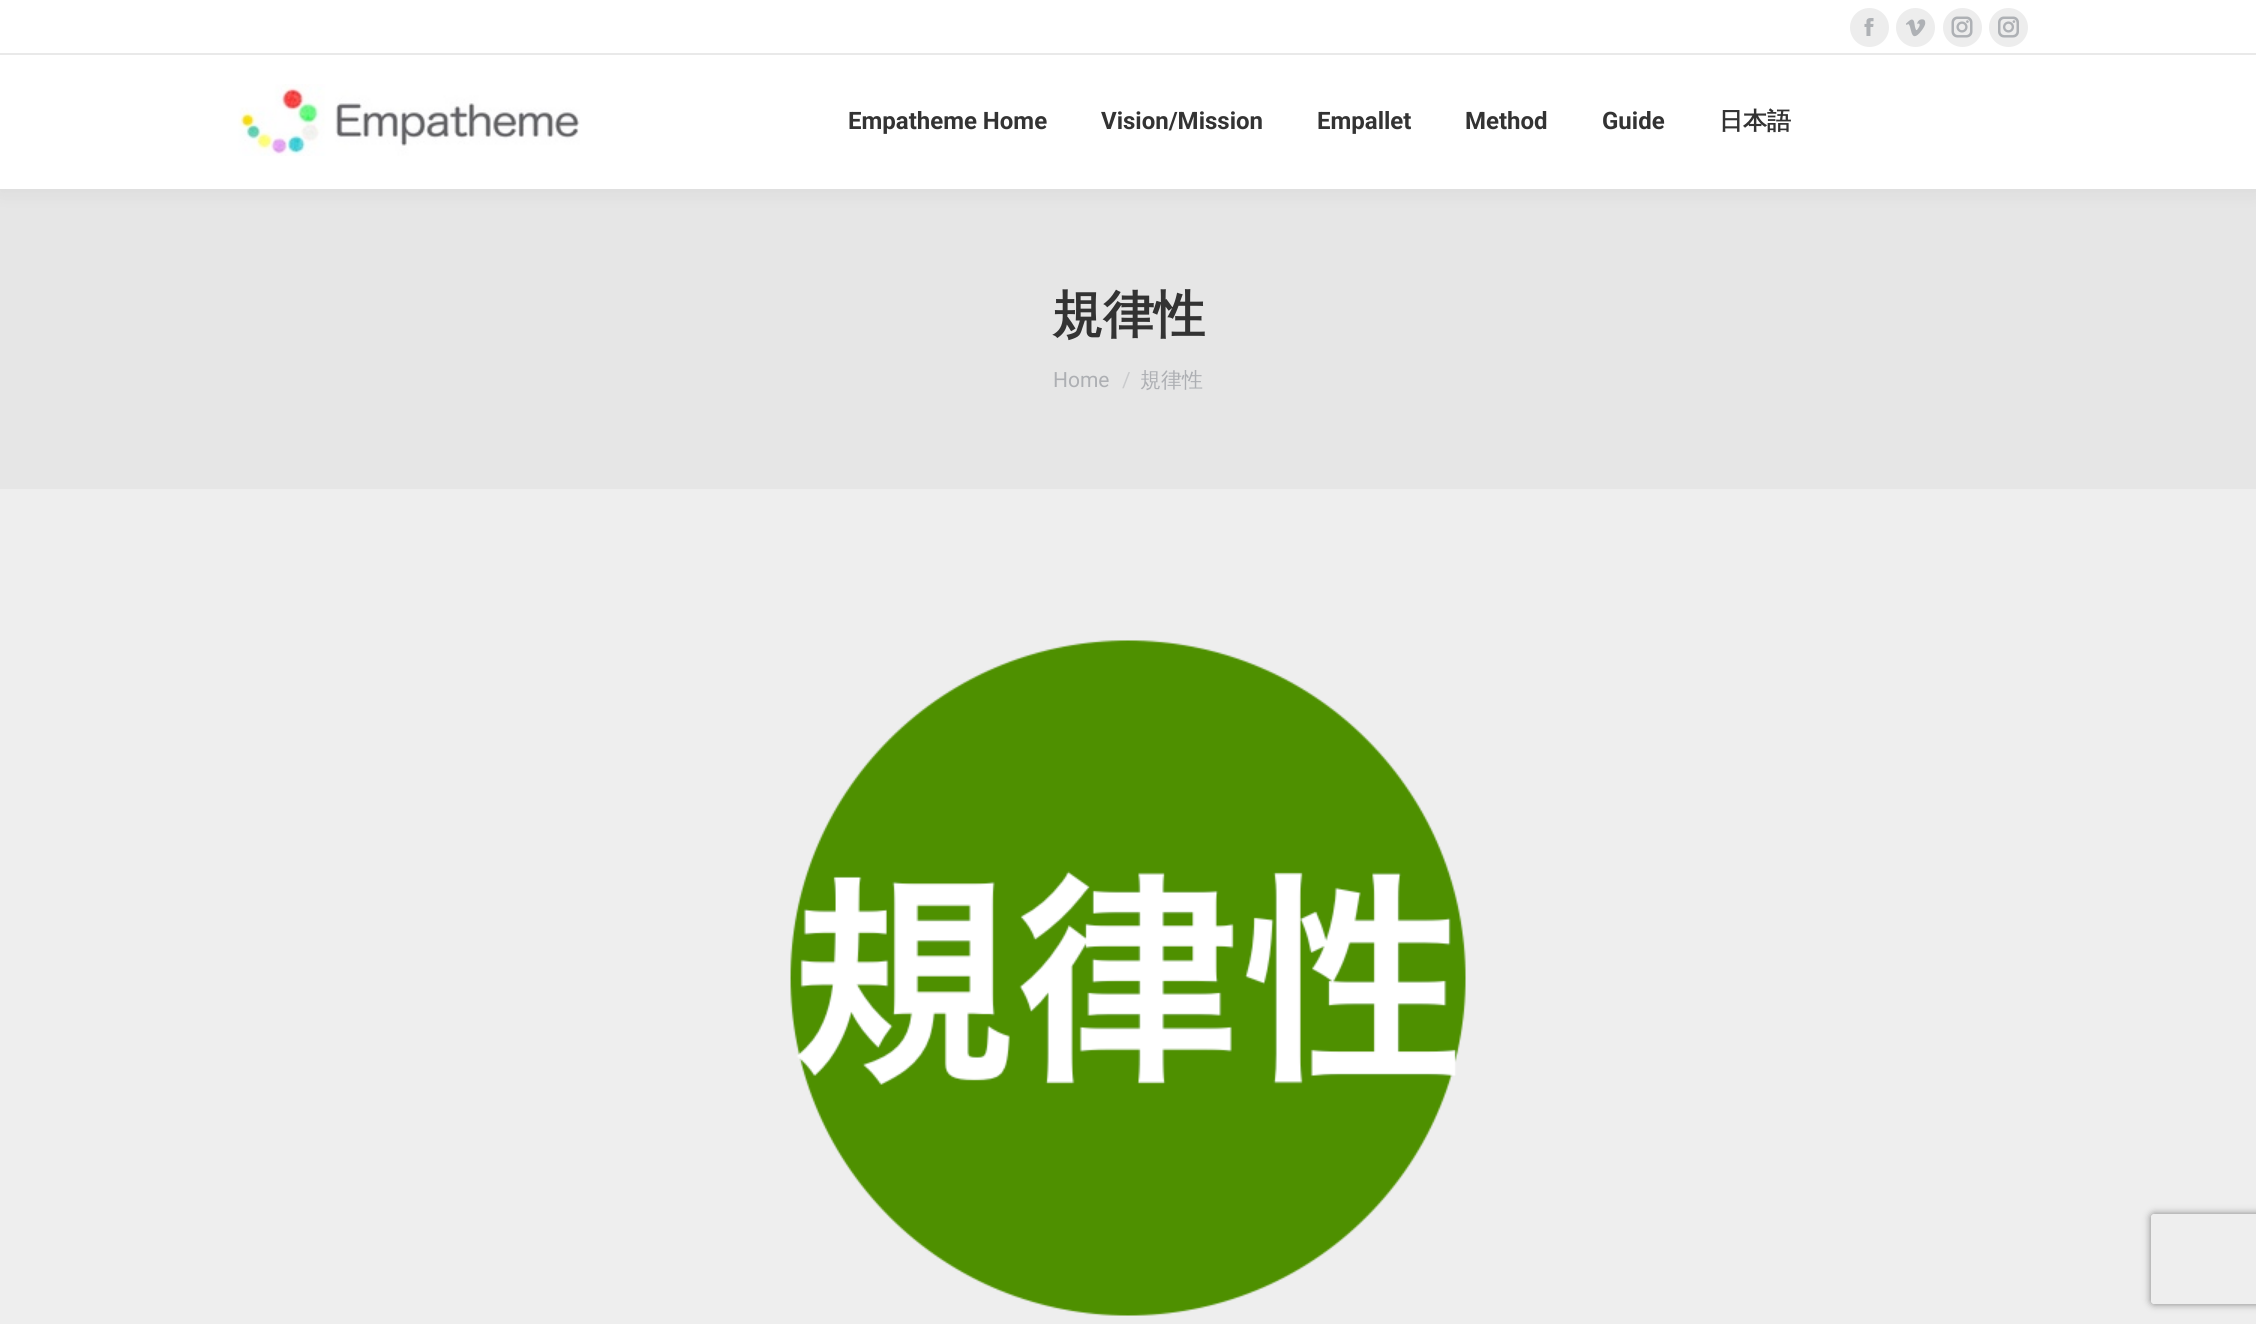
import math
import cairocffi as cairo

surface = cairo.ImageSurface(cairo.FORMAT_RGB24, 2256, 1324)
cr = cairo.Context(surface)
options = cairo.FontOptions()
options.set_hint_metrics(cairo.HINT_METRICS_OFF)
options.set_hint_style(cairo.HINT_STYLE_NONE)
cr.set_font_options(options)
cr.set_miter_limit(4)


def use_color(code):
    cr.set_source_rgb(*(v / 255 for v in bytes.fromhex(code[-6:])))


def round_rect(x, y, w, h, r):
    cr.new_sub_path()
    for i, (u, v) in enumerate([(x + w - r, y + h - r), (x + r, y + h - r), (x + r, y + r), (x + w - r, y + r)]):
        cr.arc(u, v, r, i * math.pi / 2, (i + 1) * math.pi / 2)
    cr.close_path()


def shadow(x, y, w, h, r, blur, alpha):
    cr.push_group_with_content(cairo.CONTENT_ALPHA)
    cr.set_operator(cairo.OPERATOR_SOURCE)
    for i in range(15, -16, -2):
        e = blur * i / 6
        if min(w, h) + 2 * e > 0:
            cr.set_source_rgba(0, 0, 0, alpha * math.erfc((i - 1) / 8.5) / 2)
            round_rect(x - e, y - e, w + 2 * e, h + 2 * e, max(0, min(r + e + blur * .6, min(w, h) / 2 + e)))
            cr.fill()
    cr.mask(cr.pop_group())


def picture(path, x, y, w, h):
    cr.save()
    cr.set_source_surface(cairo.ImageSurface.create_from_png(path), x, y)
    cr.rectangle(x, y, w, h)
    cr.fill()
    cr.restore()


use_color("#eeeeee")
cr.paint()
use_color("#e6e6e6")
cr.rectangle(0, 189, 2256, 300)
cr.fill()
use_color("#000000")
shadow(-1, -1, 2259, 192, 0, 11, 0.07)
use_color("#ffffff")
cr.rectangle(0, 0, 2256, 189)
cr.fill()
use_color("#ededed")
cr.arc(1869.5, 27.5, 19.5, 0, 2 * math.pi)
cr.fill()
picture("img1.png", 1864, 18, 10, 18)
cr.arc(1915.5, 27.5, 19.5, 0, 2 * math.pi)
cr.fill()
picture("img2.png", 1906, 19, 20, 18)
cr.arc(1962.5, 27.5, 19.5, 0, 2 * math.pi)
cr.fill()
picture("img3.png", 1951, 16, 22, 22)
cr.arc(2008.5, 27.5, 19.5, 0, 2 * math.pi)
cr.fill()
picture("img4.png", 1998, 16, 21, 22)
use_color("#e9e9e9")
cr.rectangle(0, 53, 2256, 2)
cr.fill()
picture("img5.png", 238, 84, 342, 72)
cr.select_font_face("Roboto", cairo.FONT_SLANT_NORMAL, cairo.FONT_WEIGHT_BOLD)
cr.set_font_size(24)
use_color("#333333")
cr.move_to(848, 129)
cr.show_text("Empatheme Home")
cr.move_to(1101, 129)
cr.show_text("Vision/Mission")
cr.move_to(1317, 129)
cr.show_text("Empallet")
cr.move_to(1465, 129)
cr.show_text("Method")
cr.move_to(1602, 129)
cr.show_text("Guide")
cr.select_font_face("WenQuanYi Zen Hei", cairo.FONT_SLANT_NORMAL, cairo.FONT_WEIGHT_BOLD)
cr.move_to(1719, 129)
cr.show_text("日本語")
cr.set_font_size(51)
cr.move_to(1052, 332)
cr.show_text("規律性")
cr.select_font_face("Roboto")
cr.set_font_size(21)
use_color("#adafb3")
cr.move_to(1053, 387)
cr.show_text("Home")
use_color("#cacbcd")
cr.move_to(1122, 387)
cr.show_text("/")
cr.select_font_face("WenQuanYi Zen Hei Medium")
use_color("#adafb3")
cr.move_to(1140, 387)
cr.show_text("規律性")
picture("img6.png", 790, 640, 676, 676)
cr.save()
cr.set_fill_rule(cairo.FILL_RULE_EVEN_ODD)
cr.new_path()
cr.move_to(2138, 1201)
cr.line_to(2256, 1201)
cr.line_to(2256, 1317)
cr.line_to(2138, 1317)
cr.close_path()
cr.move_to(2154, 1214)
cr.line_to(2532, 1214)
cr.curve_to(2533.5, 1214, 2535, 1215.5, 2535, 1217)
cr.line_to(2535, 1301)
cr.curve_to(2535, 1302.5, 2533.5, 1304, 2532, 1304)
cr.line_to(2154, 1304)
cr.curve_to(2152.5, 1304, 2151, 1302.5, 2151, 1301)
cr.line_to(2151, 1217)
cr.curve_to(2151, 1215.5, 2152.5, 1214, 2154, 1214)
cr.close_path()
cr.clip()
use_color("#808080")
shadow(2151, 1214, 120, 90, 3, 4, 1)
cr.restore()
surface.write_to_png("result.png")
